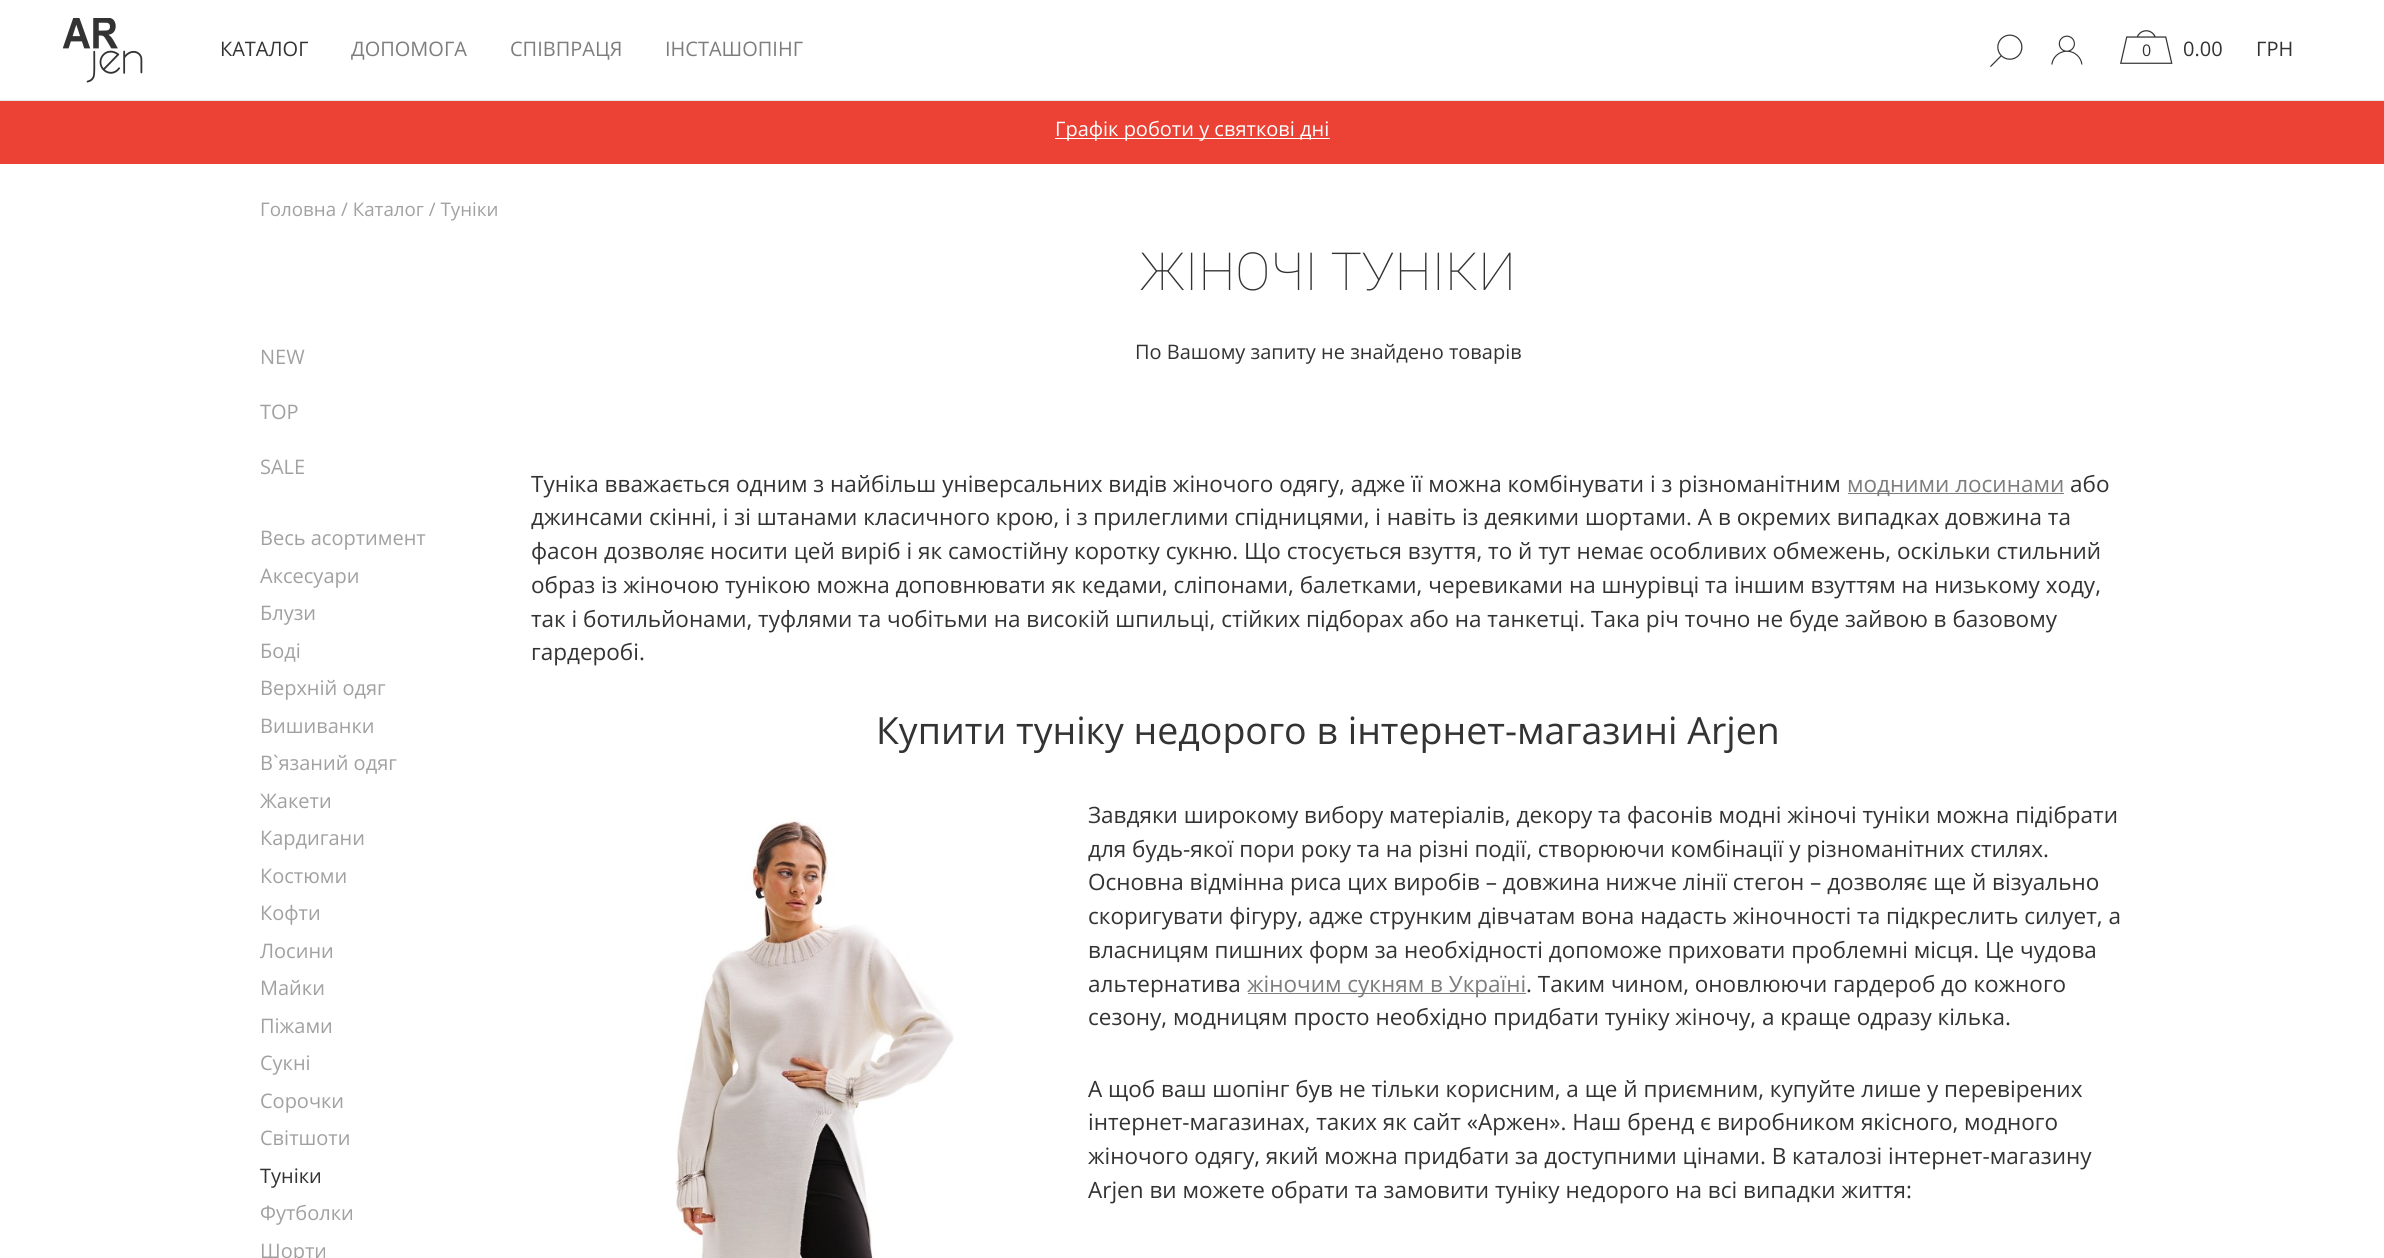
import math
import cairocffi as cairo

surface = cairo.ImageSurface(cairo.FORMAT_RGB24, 2384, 1258)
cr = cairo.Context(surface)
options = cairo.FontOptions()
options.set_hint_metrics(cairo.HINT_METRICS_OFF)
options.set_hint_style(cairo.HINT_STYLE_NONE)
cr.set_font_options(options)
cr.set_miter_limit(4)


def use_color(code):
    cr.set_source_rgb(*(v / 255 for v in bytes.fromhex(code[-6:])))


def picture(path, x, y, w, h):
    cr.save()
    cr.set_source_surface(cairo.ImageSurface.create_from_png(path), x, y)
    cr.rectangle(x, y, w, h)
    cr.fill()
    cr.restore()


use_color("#ffffff")
cr.paint()
use_color("#e7e7e7")
cr.rectangle(0, 100, 2384, 1)
cr.fill()
picture("img1.png", 63, 18, 80, 65)
cr.select_font_face("Open Sans")
cr.set_font_size(20)
use_color("#333333")
cr.move_to(220, 56)
cr.show_text("КАТАЛОГ")
use_color("#7d7d7d")
cr.move_to(351, 56)
cr.show_text("ДОПОМОГА")
cr.move_to(510, 56)
cr.show_text("СПІВПРАЦЯ")
cr.move_to(665, 56)
cr.show_text("ІНСТАШОПІНГ")
picture("img2.png", 1990, 34, 33, 33)
picture("img3.png", 2051, 35, 32, 30)
cr.set_font_size(16)
use_color("#333333")
cr.move_to(2142, 56)
cr.show_text("0")
picture("img4.png", 2120, 30, 53, 34)
cr.set_font_size(20)
cr.move_to(2183, 56)
cr.show_text("0.00")
cr.move_to(2256, 56)
cr.show_text("ГРН")
cr.set_font_size(18.75)
use_color("#a1a1a1")
cr.move_to(260, 216)
cr.show_text("Головна / Каталог / Туніки")
cr.set_font_size(20)
cr.move_to(260, 364)
cr.show_text("NEW")
cr.move_to(260, 419)
cr.show_text("TOP")
cr.move_to(260, 474)
cr.show_text("SALE")
cr.move_to(260, 545)
cr.show_text("Весь асортимент")
cr.move_to(260, 583)
cr.show_text("Аксесуари")
cr.move_to(260, 620)
cr.show_text("Блузи")
cr.move_to(260, 658)
cr.show_text("Боді")
cr.move_to(260, 695)
cr.show_text("Верхній одяг")
cr.move_to(260, 733)
cr.show_text("Вишиванки")
cr.move_to(260, 770)
cr.show_text("В`язаний одяг")
cr.move_to(260, 808)
cr.show_text("Жакети")
cr.move_to(260, 845)
cr.show_text("Кардигани")
cr.move_to(260, 883)
cr.show_text("Костюми")
cr.move_to(260, 920)
cr.show_text("Кофти")
cr.move_to(260, 958)
cr.show_text("Лосини")
cr.move_to(260, 995)
cr.show_text("Майки")
cr.move_to(260, 1033)
cr.show_text("Піжами")
cr.move_to(260, 1070)
cr.show_text("Сукні")
cr.move_to(260, 1108)
cr.show_text("Сорочки")
cr.move_to(260, 1145)
cr.show_text("Світшоти")
use_color("#333333")
cr.move_to(260, 1183)
cr.show_text("Туніки")
use_color("#a1a1a1")
cr.move_to(260, 1220)
cr.show_text("Футболки")
cr.move_to(260, 1258)
cr.show_text("Шорти")
cr.select_font_face("Roboto Thin")
cr.set_font_size(52.5)
use_color("#333333")
cr.move_to(1140, 290)
cr.show_text("ЖІНОЧІ ТУНІКИ")
cr.select_font_face("Open Sans")
cr.set_font_size(20)
cr.move_to(1135, 359)
cr.show_text("По Вашому запиту не знайдено товарів")
cr.set_font_size(22.5)
cr.move_to(531, 492)
cr.show_text("Туніка вважається одним з найбільш універсальних видів жіночого одягу, адже її можна комбінувати і з різноманітним")
use_color("#7d7d7d")
cr.rectangle(1848, 493, 216, 1)
cr.fill()
cr.move_to(1847, 492)
cr.show_text("модними лосинами")
use_color("#333333")
cr.move_to(2070, 492)
cr.show_text("або")
cr.move_to(531, 525)
cr.show_text("джинсами скінні, і зі штанами класичного крою, і з прилеглими спідницями, і навіть із деякими шортами. А в окремих випадках довжина та")
cr.move_to(531, 559)
cr.show_text("фасон дозволяє носити цей виріб і як самостійну коротку сукню. Що стосується взуття, то й тут немає особливих обмежень, оскільки стильний")
cr.move_to(531, 593)
cr.show_text("образ із жіночою тунікою можна доповнювати як кедами, сліпонами, балетками, черевиками на шнурівці та іншим взуттям на низькому ходу,")
cr.move_to(531, 627)
cr.show_text("так і ботильйонами, туфлями та чобітьми на високій шпильці, стійких підборах або на танкетці. Така річ точно не буде зайвою в базовому")
cr.move_to(531, 660)
cr.show_text("гардеробі.")
cr.set_font_size(37.5)
cr.move_to(876, 744)
cr.show_text("Купити туніку недорого в інтернет-магазині Arjen")
picture("img5.png", 675, 817, 279, 441)
cr.set_font_size(22.5)
cr.move_to(1088, 823)
cr.show_text("Завдяки широкому вибору матеріалів, декору та фасонів модні жіночі туніки можна підібрати")
cr.move_to(1088, 857)
cr.show_text("для будь-якої пори року та на різні події, створюючи комбінації у різноманітних стилях.")
cr.move_to(1088, 890)
cr.show_text("Основна відмінна риса цих виробів – довжина нижче лінії стегон – дозволяє ще й візуально")
cr.move_to(1088, 924)
cr.show_text("скоригувати фігуру, адже струнким дівчатам вона надасть жіночності та підкреслить силует, а")
cr.move_to(1088, 958)
cr.show_text("власницям пишних форм за необхідності допоможе приховати проблемні місця. Це чудова")
cr.move_to(1088, 992)
cr.show_text("альтернатива")
use_color("#7d7d7d")
cr.rectangle(1248, 993, 278, 1)
cr.fill()
cr.move_to(1247, 992)
cr.show_text("жіночим сукням в Україні")
use_color("#333333")
cr.move_to(1526, 992)
cr.show_text(". Таким чином, оновлюючи гардероб до кожного")
cr.move_to(1088, 1025)
cr.show_text("сезону, модницям просто необхідно придбати туніку жіночу, а краще одразу кілька.")
cr.move_to(1088, 1097)
cr.show_text("А щоб ваш шопінг був не тільки корисним, а ще й приємним, купуйте лише у перевірених")
cr.move_to(1088, 1130)
cr.show_text("інтернет-магазинах, таких як сайт «Аржен». Наш бренд є виробником якісного, модного")
cr.move_to(1088, 1164)
cr.show_text("жіночого одягу, який можна придбати за доступними цінами. В каталозі інтернет-магазину")
cr.move_to(1088, 1198)
cr.show_text("Arjen ви можете обрати та замовити туніку недорого на всі випадки життя:")
use_color("#eb4235")
cr.rectangle(0, 101, 2384, 63)
cr.fill()
use_color("#ffffff")
cr.rectangle(1055, 138, 275, 1)
cr.fill()
cr.set_font_size(20)
cr.move_to(1055, 136)
cr.show_text("Графік роботи у святкові дні")
surface.write_to_png("result.png")
